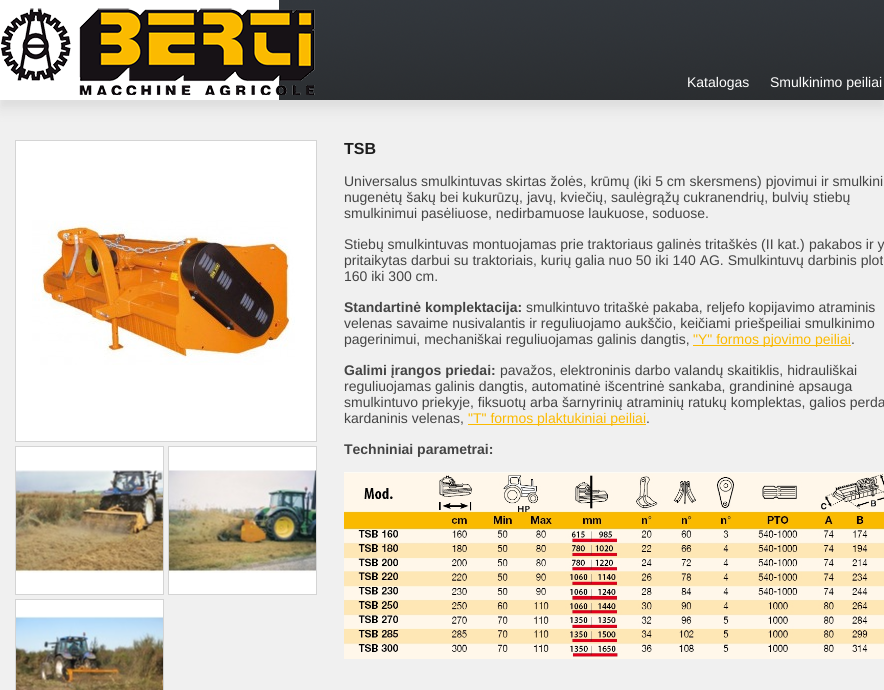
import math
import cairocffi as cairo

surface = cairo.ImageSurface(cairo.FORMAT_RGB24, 884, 690)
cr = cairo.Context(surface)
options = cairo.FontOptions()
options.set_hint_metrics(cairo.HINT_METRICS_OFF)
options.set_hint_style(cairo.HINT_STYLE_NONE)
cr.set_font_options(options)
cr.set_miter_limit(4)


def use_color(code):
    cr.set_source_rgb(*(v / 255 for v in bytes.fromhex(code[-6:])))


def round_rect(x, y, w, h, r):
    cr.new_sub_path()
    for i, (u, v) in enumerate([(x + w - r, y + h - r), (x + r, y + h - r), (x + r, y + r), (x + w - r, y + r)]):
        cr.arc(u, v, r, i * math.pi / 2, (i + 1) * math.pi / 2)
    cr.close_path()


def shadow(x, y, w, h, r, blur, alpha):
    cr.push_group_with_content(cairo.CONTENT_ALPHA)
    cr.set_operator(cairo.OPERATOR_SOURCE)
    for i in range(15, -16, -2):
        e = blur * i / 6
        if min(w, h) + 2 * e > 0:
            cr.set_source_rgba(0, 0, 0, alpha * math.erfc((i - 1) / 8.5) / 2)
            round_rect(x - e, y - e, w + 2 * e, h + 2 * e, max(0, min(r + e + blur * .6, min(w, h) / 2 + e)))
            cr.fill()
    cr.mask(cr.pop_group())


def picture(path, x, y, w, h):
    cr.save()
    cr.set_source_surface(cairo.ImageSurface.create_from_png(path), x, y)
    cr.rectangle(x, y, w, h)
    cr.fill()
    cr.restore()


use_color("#ffffff")
cr.paint()
use_color("#f0f0f0")
cr.rectangle(0, 100, 884, 590)
cr.fill()
cr.save()
cr.rectangle(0, 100, 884, 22)
cr.clip()
use_color("#dbdbdb")
shadow(0, 8, 884, 100, 0, 7, 1)
cr.restore()
picture("img1.png", 279, 0, 605, 100)
picture("img2.png", 1, 8, 314, 87)
cr.select_font_face("Liberation Sans")
cr.set_font_size(14)
use_color("#ffffff")
cr.move_to(687, 87)
cr.show_text("Katalogas")
cr.move_to(770, 87)
cr.show_text("Smulkinimo peiliai")
cr.rectangle(16, 141, 300, 300)
cr.fill()
picture("img3.png", 32, 220, 263, 145)
cr.rectangle(15.5, 140.5, 301, 301)
use_color("#d4d4d4")
cr.set_line_width(1)
cr.stroke()
use_color("#ffffff")
cr.rectangle(16, 447, 147, 147)
cr.fill()
picture("img4.png", 16, 470, 147, 103)
cr.rectangle(15.5, 446.5, 148, 148)
use_color("#d4d4d4")
cr.stroke()
use_color("#ffffff")
cr.rectangle(169, 447, 147, 147)
cr.fill()
picture("img5.png", 169, 470, 147, 103)
cr.rectangle(168.5, 446.5, 148, 148)
use_color("#d4d4d4")
cr.stroke()
use_color("#ffffff")
cr.rectangle(16, 600, 147, 16)
cr.fill()
picture("img6.png", 16, 616, 147, 74)
cr.rectangle(15.5, 599.5, 148, 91)
use_color("#d4d4d4")
cr.stroke()
cr.select_font_face("Liberation Sans", cairo.FONT_SLANT_NORMAL, cairo.FONT_WEIGHT_BOLD)
cr.set_font_size(16)
use_color("#1d1d1d")
cr.move_to(344, 154)
cr.show_text("TSB")
cr.select_font_face("Liberation Sans")
cr.set_font_size(14)
use_color("#444444")
cr.move_to(344, 186)
cr.show_text("Universalus smulkintuvas skirtas žolės, krūmų (iki 5 cm skersmens) pjovimui ir smulkini")
cr.move_to(344, 202)
cr.show_text("nugenėtų šakų bei kukurūzų, javų, kviečių, saulėgrąžų cukranendrių, bulvių")
cr.move_to(813, 202)
cr.show_text("stiebų")
cr.move_to(344, 218)
cr.show_text("smulkinimui pasėliuose, nedirbamuose laukuose, soduose.")
cr.move_to(344, 249)
cr.show_text("Stiebų smulkintuvas montuojamas prie traktoriaus galinės tritaškės (II kat.)")
cr.move_to(809, 249)
cr.show_text("pakabos ir y")
cr.move_to(344, 265)
cr.show_text("pritaikytas darbui su traktoriais, kurių galia nuo 50 iki 140 AG. Smulkintuvų darbinis plot")
cr.move_to(344, 281)
cr.show_text("160 iki 300 cm.")
cr.select_font_face("Liberation Sans", cairo.FONT_SLANT_NORMAL, cairo.FONT_WEIGHT_BOLD)
cr.move_to(344, 312)
cr.show_text("Standartinė komplektacija:")
cr.select_font_face("Liberation Sans")
cr.move_to(526, 312)
cr.show_text("smulkintuvo tritaškė pakaba, reljefo kopijavimo atraminis")
cr.move_to(344, 328)
cr.show_text("velenas savaime nusivalantis ir reguliuojamo aukščio, keičiami priešpeiliai smulkinimo")
cr.move_to(344, 344)
cr.show_text("pagerinimui, mechaniškai reguliuojamas galinis dangtis,")
use_color("#fbba00")
cr.rectangle(693, 345, 158, 1)
cr.fill()
cr.move_to(693, 344)
cr.show_text("\"Y\" formos pjovimo peiliai")
use_color("#444444")
cr.move_to(851, 344)
cr.show_text(".")
cr.select_font_face("Liberation Sans", cairo.FONT_SLANT_NORMAL, cairo.FONT_WEIGHT_BOLD)
cr.move_to(344, 375)
cr.show_text("Galimi įrangos priedai:")
cr.select_font_face("Liberation Sans")
cr.move_to(500, 375)
cr.show_text("pavažos, elektroninis darbo valandų skaitiklis, hidrauliškai")
cr.move_to(344, 391)
cr.show_text("reguliuojamas galinis dangtis, automatinė išcentrinė sankaba, grandininė apsauga")
cr.move_to(344, 407)
cr.show_text("smulkintuvo priekyje, fiksuotų arba šarnyrinių atraminių ratukų komplektas, galios perda")
cr.move_to(344, 423)
cr.show_text("kardaninis velenas,")
use_color("#fbba00")
cr.rectangle(468, 424, 178, 1)
cr.fill()
cr.move_to(468, 423)
cr.show_text("\"T\" formos plaktukiniai peiliai")
use_color("#444444")
cr.move_to(646, 423)
cr.show_text(".")
cr.select_font_face("Liberation Sans", cairo.FONT_SLANT_NORMAL, cairo.FONT_WEIGHT_BOLD)
cr.move_to(344, 454)
cr.show_text("Techniniai parametrai:")
picture("img7.png", 344, 472, 540, 187)
surface.write_to_png("result.png")
